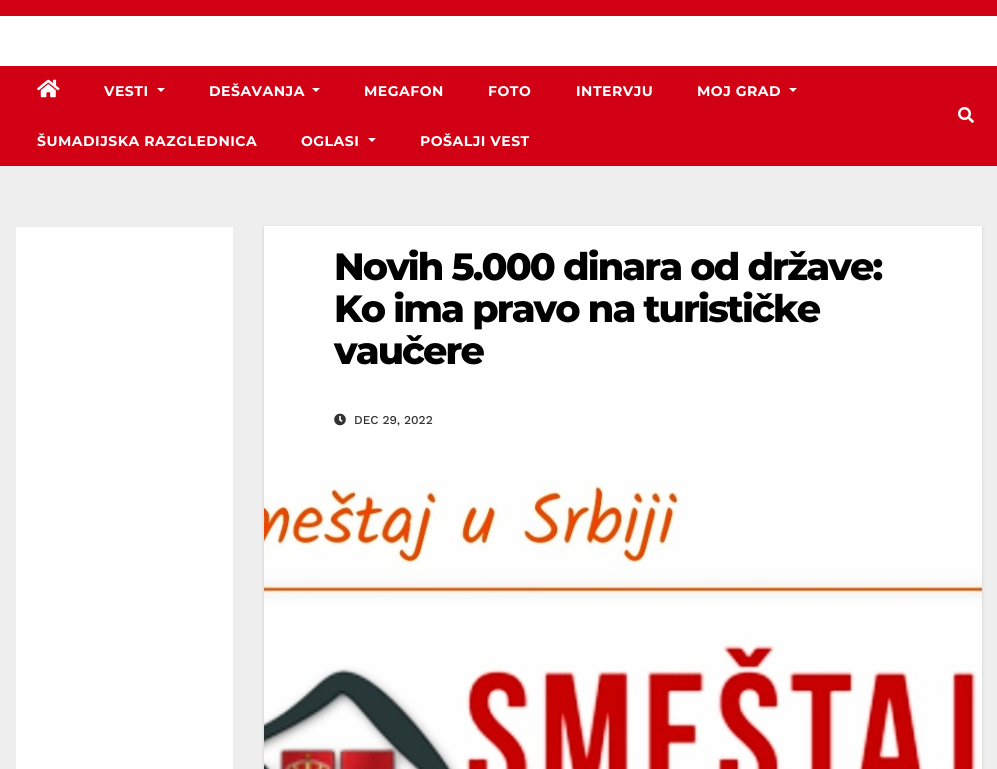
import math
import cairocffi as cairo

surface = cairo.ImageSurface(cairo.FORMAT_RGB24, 997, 769)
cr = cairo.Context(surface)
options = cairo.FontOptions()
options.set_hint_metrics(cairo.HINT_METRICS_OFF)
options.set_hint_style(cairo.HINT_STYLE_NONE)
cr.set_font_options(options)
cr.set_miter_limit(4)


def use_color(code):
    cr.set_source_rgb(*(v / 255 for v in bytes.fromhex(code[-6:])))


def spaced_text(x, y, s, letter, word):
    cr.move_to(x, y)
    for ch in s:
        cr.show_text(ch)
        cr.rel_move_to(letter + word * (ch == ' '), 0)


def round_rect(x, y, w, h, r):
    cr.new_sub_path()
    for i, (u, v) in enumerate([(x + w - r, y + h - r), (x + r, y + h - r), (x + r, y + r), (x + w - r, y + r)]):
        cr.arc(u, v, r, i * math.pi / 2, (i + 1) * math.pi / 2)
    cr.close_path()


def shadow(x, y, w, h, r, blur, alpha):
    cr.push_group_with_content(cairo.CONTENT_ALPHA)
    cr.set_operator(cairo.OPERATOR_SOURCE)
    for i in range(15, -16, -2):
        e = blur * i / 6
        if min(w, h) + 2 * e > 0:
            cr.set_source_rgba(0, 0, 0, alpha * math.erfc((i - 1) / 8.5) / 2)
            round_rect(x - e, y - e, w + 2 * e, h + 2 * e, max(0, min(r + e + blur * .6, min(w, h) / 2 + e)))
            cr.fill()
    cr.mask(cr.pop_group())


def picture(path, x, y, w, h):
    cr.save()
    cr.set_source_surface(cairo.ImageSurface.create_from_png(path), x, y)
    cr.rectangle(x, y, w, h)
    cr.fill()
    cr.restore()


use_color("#eeeeee")
cr.paint()
use_color("#d10014")
cr.rectangle(0, 0, 997, 16)
cr.fill()
use_color("#ffffff")
cr.rectangle(0, 16, 997, 50)
cr.fill()
use_color("#d10014")
cr.rectangle(0, 66, 997, 100)
cr.fill()
picture("img1.png", 37, 79, 23, 19)
cr.select_font_face("Montserrat", cairo.FONT_SLANT_NORMAL, cairo.FONT_WEIGHT_BOLD)
cr.set_font_size(14)
use_color("#ffffff")
spaced_text(104, 96, "VESTI", 0.5, 0)
cr.new_path()
cr.move_to(157, 88)
cr.line_to(165, 88)
cr.line_to(161, 92)
cr.close_path()
cr.fill()
spaced_text(209, 96, "DEŠAVANJA", 0.5, 0)
cr.new_path()
cr.move_to(312, 88)
cr.line_to(320, 88)
cr.line_to(316, 92)
cr.close_path()
cr.fill()
spaced_text(364, 96, "MEGAFON", 0.5, 0)
spaced_text(488, 96, "FOTO", 0.5, 0)
spaced_text(576, 96, "INTERVJU", 0.5, 0)
spaced_text(697, 96, "MOJ GRAD", 0.5, 0)
cr.new_path()
cr.move_to(789, 88)
cr.line_to(797, 88)
cr.line_to(793, 92)
cr.close_path()
cr.fill()
spaced_text(37, 146, "ŠUMADIJSKA RAZGLEDNICA", 0.5, 0)
spaced_text(301, 146, "OGLASI", 0.5, 0)
cr.new_path()
cr.move_to(368, 138)
cr.line_to(376, 138)
cr.line_to(372, 142)
cr.close_path()
cr.fill()
spaced_text(420, 146, "POŠALJI VEST", 0.5, 0)
picture("img2.png", 958, 107, 16, 16)
cr.rectangle(16, 227, 217, 542)
cr.fill()
use_color("#000000")
shadow(264, 227, 718, 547, 0, 1.5, 0.15)
use_color("#ffffff")
cr.rectangle(264, 226, 718, 254)
cr.fill()
cr.select_font_face("Montserrat ExtraBold")
cr.set_font_size(38)
use_color("#000000")
spaced_text(334, 280, "Novih 5.000 dinara od države:", -1.9, 0)
spaced_text(334, 322, "Ko ima pravo na turističke", -1.9, 0)
spaced_text(334, 364, "vaučere", -1.9, 0)
picture("img3.png", 334, 413, 12, 13)
cr.select_font_face("Work Sans Medium")
cr.set_font_size(12)
use_color("#333333")
cr.move_to(354, 424)
cr.show_text("DEC 29, 2022")
picture("img4.png", 264, 480, 718, 289)
surface.write_to_png("result.png")
